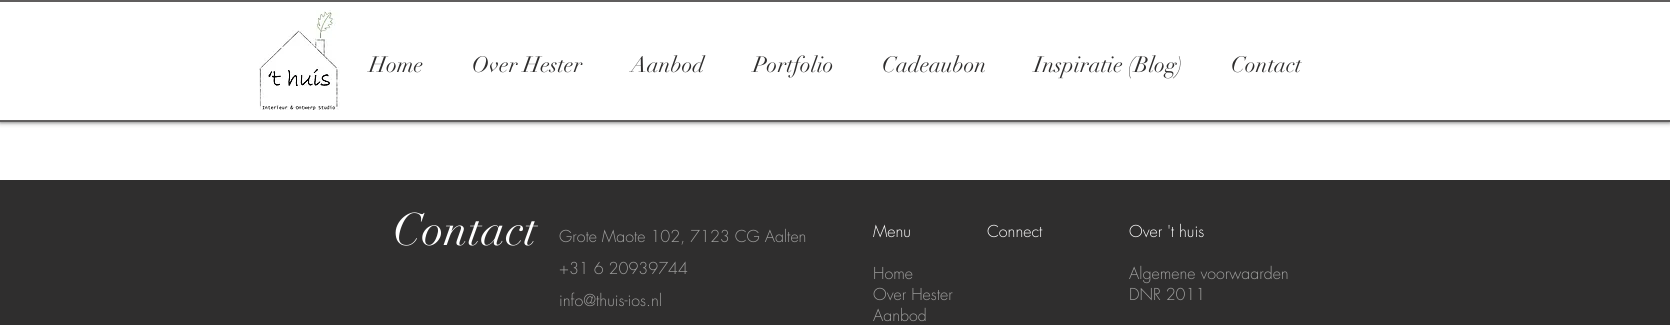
import math
import cairocffi as cairo

surface = cairo.ImageSurface(cairo.FORMAT_RGB24, 1670, 325)
cr = cairo.Context(surface)
options = cairo.FontOptions()
options.set_hint_metrics(cairo.HINT_METRICS_OFF)
options.set_hint_style(cairo.HINT_STYLE_NONE)
cr.set_font_options(options)
cr.set_miter_limit(4)


def use_color(code):
    cr.set_source_rgb(*(v / 255 for v in bytes.fromhex(code[-6:])))


def round_rect(x, y, w, h, r):
    cr.new_sub_path()
    for i, (u, v) in enumerate([(x + w - r, y + h - r), (x + r, y + h - r), (x + r, y + r), (x + w - r, y + r)]):
        cr.arc(u, v, r, i * math.pi / 2, (i + 1) * math.pi / 2)
    cr.close_path()


def shadow(x, y, w, h, r, blur, alpha):
    cr.push_group_with_content(cairo.CONTENT_ALPHA)
    cr.set_operator(cairo.OPERATOR_SOURCE)
    for i in range(15, -16, -2):
        e = blur * i / 6
        if min(w, h) + 2 * e > 0:
            cr.set_source_rgba(0, 0, 0, alpha * math.erfc((i - 1) / 8.5) / 2)
            round_rect(x - e, y - e, w + 2 * e, h + 2 * e, max(0, min(r + e + blur * .6, min(w, h) / 2 + e)))
            cr.fill()
    cr.mask(cr.pop_group())


def picture(path, x, y, w, h):
    cr.save()
    cr.set_source_surface(cairo.ImageSurface.create_from_png(path), x, y)
    cr.rectangle(x, y, w, h)
    cr.fill()
    cr.restore()


use_color("#ffffff")
cr.paint()
use_color("#000000")
shadow(0, 0, 1670, 122, 0, 2.5, 0.7)
use_color("#ffffff")
cr.rectangle(0, 2, 1670, 118)
cr.fill()
use_color("#605e5e")
cr.rectangle(0, 0, 1670, 2)
cr.fill()
cr.rectangle(0, 120, 1670, 2)
cr.fill()
picture("img1.png", 259, 10, 81, 100)
cr.select_font_face("didot")
cr.set_font_size(22)
use_color("#2f2e2e")
cr.move_to(369, 72)
cr.show_text("Home")
cr.move_to(472, 72)
cr.show_text("Over Hester")
cr.move_to(631, 72)
cr.show_text("Aanbod")
cr.move_to(753, 72)
cr.show_text("Portfolio")
cr.move_to(882, 72)
cr.show_text("Cadeaubon")
cr.move_to(1034, 72)
cr.show_text("Inspiratie (Blog)")
cr.move_to(1231, 72)
cr.show_text("Contact")
cr.rectangle(0, 180, 1670, 145)
cr.fill()
cr.set_font_size(45)
use_color("#ffffff")
cr.move_to(393, 245)
cr.show_text("Contact")
cr.select_font_face("futura Light")
cr.set_font_size(16)
use_color("#a0a09f")
cr.move_to(559, 242)
cr.show_text("Grote Maote 102, 7123 CG Aalten")
cr.move_to(559, 274)
cr.show_text("+31 6 20939744")
cr.move_to(559, 306)
cr.show_text("info@thuis-ios.nl")
use_color("#ffffff")
cr.move_to(873, 237)
cr.show_text("Menu")
use_color("#a0a09f")
cr.move_to(873, 279)
cr.show_text("Home")
cr.move_to(873, 300)
cr.show_text("Over Hester")
cr.move_to(873, 321)
cr.show_text("Aanbod")
use_color("#ffffff")
cr.move_to(987, 237)
cr.show_text("Connect")
cr.move_to(1129, 237)
cr.show_text("Over 't huis")
use_color("#a0a09f")
cr.move_to(1129, 279)
cr.show_text("Algemene voorwaarden")
cr.move_to(1129, 300)
cr.show_text("DNR 2011")
surface.write_to_png("result.png")
